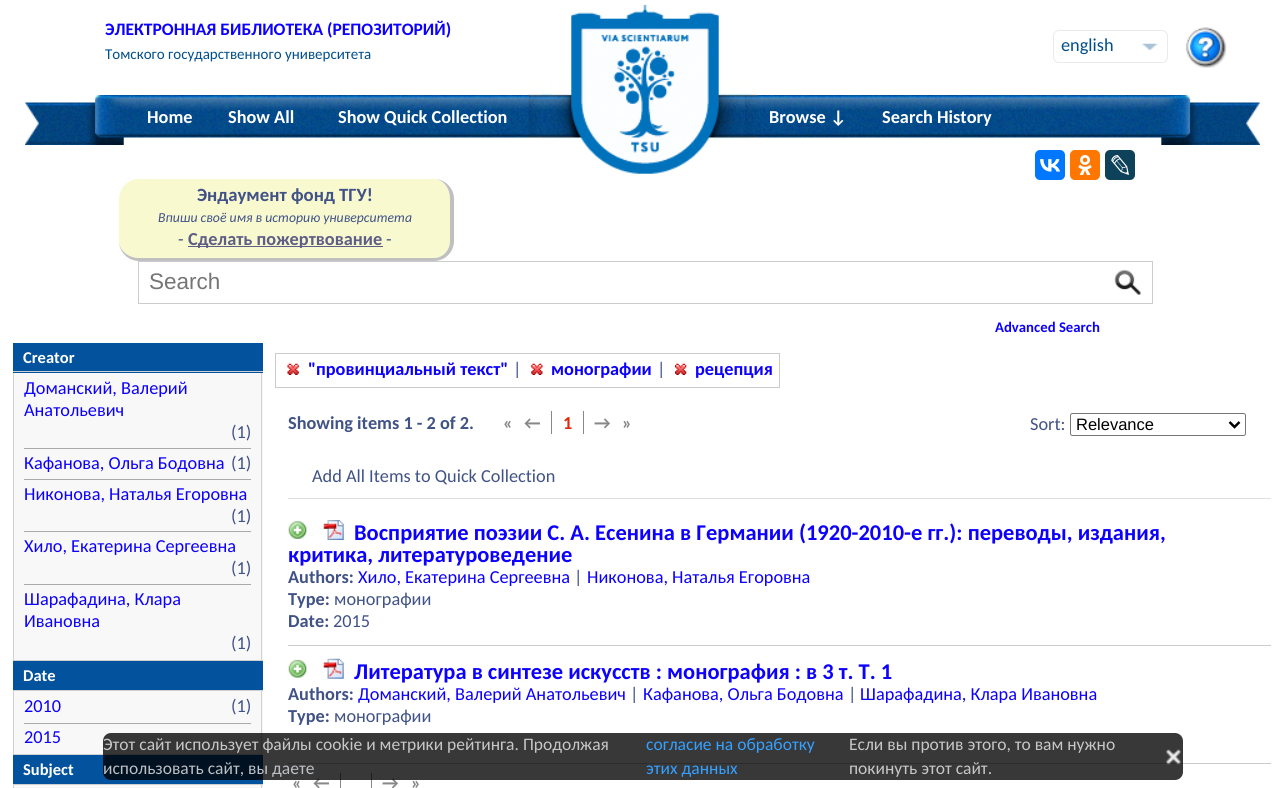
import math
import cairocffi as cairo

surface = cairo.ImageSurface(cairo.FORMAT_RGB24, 1285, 788)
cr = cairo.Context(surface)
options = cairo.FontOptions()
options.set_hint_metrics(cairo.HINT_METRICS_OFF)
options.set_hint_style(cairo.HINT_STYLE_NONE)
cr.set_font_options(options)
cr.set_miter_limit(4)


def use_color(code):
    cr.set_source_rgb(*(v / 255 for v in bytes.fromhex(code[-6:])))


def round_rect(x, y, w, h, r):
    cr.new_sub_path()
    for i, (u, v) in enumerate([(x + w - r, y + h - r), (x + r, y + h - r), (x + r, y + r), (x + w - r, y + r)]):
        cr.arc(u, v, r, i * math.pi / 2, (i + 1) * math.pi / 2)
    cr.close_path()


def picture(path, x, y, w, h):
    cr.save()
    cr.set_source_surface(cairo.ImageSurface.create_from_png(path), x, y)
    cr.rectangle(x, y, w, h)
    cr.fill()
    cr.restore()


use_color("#ffffff")
cr.paint()
cr.select_font_face("Carlito", cairo.FONT_SLANT_NORMAL, cairo.FONT_WEIGHT_BOLD)
cr.set_font_size(17.5)
use_color("#0c00ff")
cr.move_to(105, 35)
cr.show_text("ЭЛЕКТРОННАЯ БИБЛИОТЕКА (РЕПОЗИТОРИЙ)")
cr.select_font_face("Carlito")
cr.set_font_size(15)
use_color("#004e8b")
cr.move_to(105, 59)
cr.show_text("Томского государственного университета")
round_rect(1053.5, 30.5, 114, 32, 5.5)
use_color("#ebe9e9")
cr.set_line_width(1)
cr.stroke()
picture("img1.png", 1142, 43, 16, 7)
cr.set_font_size(18.3)
use_color("#004e8b")
cr.move_to(1061, 51)
cr.show_text("english")
picture("img2.png", 1186, 27, 41, 41)
picture("img4.png", 143, 95, 999, 43)
picture("img3.png", 25, 95, 119, 50)
cr.select_font_face("Carlito", cairo.FONT_SLANT_NORMAL, cairo.FONT_WEIGHT_BOLD)
use_color("#ffffff")
cr.move_to(147, 123)
cr.show_text("Home")
cr.move_to(228, 123)
cr.show_text("Show All")
cr.move_to(338, 123)
cr.show_text("Show Quick Collection")
picture("img5.png", 528, 4, 230, 170)
cr.move_to(769, 123)
cr.show_text("Browse ↓")
cr.move_to(882, 123)
cr.show_text("Search History")
picture("img6.png", 1141, 95, 119, 50)
use_color("#f9f9d0")
cr.new_path()
cr.move_to(139, 179)
cr.line_to(434, 179)
cr.curve_to(443, 179, 450, 188, 450, 199)
cr.line_to(450, 241)
cr.curve_to(450, 250, 443, 258, 434, 258)
cr.line_to(139, 258)
cr.curve_to(128, 258, 119, 250, 119, 241)
cr.line_to(119, 199)
cr.curve_to(119, 188, 128, 179, 139, 179)
cr.close_path()
cr.fill()
use_color("#c0c0c0")
cr.set_fill_rule(cairo.FILL_RULE_EVEN_ODD)
cr.new_path()
cr.move_to(139, 179)
cr.line_to(434, 179)
cr.curve_to(445, 179, 454, 188, 454, 199)
cr.line_to(454, 241)
cr.curve_to(454, 252, 445, 261, 434, 261)
cr.line_to(139, 261)
cr.curve_to(128, 261, 119, 252, 119, 241)
cr.line_to(119, 199)
cr.curve_to(119, 188, 128, 179, 139, 179)
cr.close_path()
cr.move_to(139, 179)
cr.line_to(434, 179)
cr.curve_to(443, 179, 450, 188, 450, 199)
cr.line_to(450, 241)
cr.curve_to(450, 250, 443, 258, 434, 258)
cr.line_to(139, 258)
cr.curve_to(128, 258, 119, 250, 119, 241)
cr.line_to(119, 199)
cr.curve_to(119, 188, 128, 179, 139, 179)
cr.close_path()
cr.fill()
cr.set_font_size(18.75)
use_color("#405286")
cr.move_to(197, 201)
cr.show_text("Эндаумент фонд ТГУ!")
cr.select_font_face("Carlito", cairo.FONT_SLANT_ITALIC)
cr.set_font_size(13.75)
cr.move_to(158, 222)
cr.show_text("Впиши своё имя в историю университета")
cr.select_font_face("Carlito")
cr.set_font_size(18.3)
cr.move_to(178, 245)
cr.show_text("-")
use_color("#5d5d86")
cr.rectangle(188, 246, 195, 1)
cr.fill()
cr.select_font_face("Carlito", cairo.FONT_SLANT_NORMAL, cairo.FONT_WEIGHT_BOLD)
cr.move_to(188, 245)
cr.show_text("Сделать пожертвование")
cr.select_font_face("Carlito")
use_color("#405286")
cr.move_to(386, 245)
cr.show_text("-")
cr.rectangle(138.5, 261.5, 1014, 42)
use_color("#cccccc")
cr.stroke()
cr.select_font_face("Liberation Sans")
cr.set_font_size(22.5)
use_color("#757575")
cr.move_to(149, 289)
cr.show_text("Search")
picture("img7.png", 1114, 269, 27, 26)
cr.select_font_face("Carlito", cairo.FONT_SLANT_NORMAL, cairo.FONT_WEIGHT_BOLD)
cr.set_font_size(14.75)
use_color("#0c00ff")
cr.move_to(995, 332)
cr.show_text("Advanced Search")
use_color("#d0d0d0")
cr.rectangle(13, 660, 250, 1)
cr.fill()
use_color("#02529d")
cr.rectangle(13, 343, 250, 30)
cr.fill()
use_color("#d0d0d0")
cr.rectangle(13, 371, 250, 1)
cr.fill()
cr.set_font_size(16.5)
use_color("#ffffff")
cr.move_to(23, 363)
cr.show_text("Creator")
use_color("#f8f8f8")
cr.rectangle(14, 373, 249, 287)
cr.fill()
use_color("#d0d0d0")
cr.rectangle(261, 373, 1, 287)
cr.fill()
cr.rectangle(13, 373, 1, 287)
cr.fill()
cr.select_font_face("Carlito")
cr.set_font_size(18.3)
use_color("#0c00ff")
cr.move_to(24, 394)
cr.show_text("Доманский, Валерий")
cr.move_to(24, 416)
cr.show_text("Анатольевич")
use_color("#405286")
cr.move_to(231, 438)
cr.show_text("(1)")
use_color("#aaaaaa")
cr.rectangle(24, 448, 227, 1)
cr.fill()
use_color("#0c00ff")
cr.move_to(24, 469)
cr.show_text("Кафанова, Ольга Бодовна")
use_color("#405286")
cr.move_to(231, 469)
cr.show_text("(1)")
use_color("#aaaaaa")
cr.rectangle(24, 479, 227, 1)
cr.fill()
use_color("#0c00ff")
cr.move_to(24, 500)
cr.show_text("Никонова, Наталья Егоровна")
use_color("#405286")
cr.move_to(231, 522)
cr.show_text("(1)")
use_color("#aaaaaa")
cr.rectangle(24, 531, 227, 1)
cr.fill()
use_color("#0c00ff")
cr.move_to(24, 552)
cr.show_text("Хило, Екатерина Сергеевна")
use_color("#405286")
cr.move_to(231, 574)
cr.show_text("(1)")
use_color("#aaaaaa")
cr.rectangle(24, 584, 227, 1)
cr.fill()
use_color("#0c00ff")
cr.move_to(24, 605)
cr.show_text("Шарафадина, Клара")
cr.move_to(24, 627)
cr.show_text("Ивановна")
use_color("#405286")
cr.move_to(231, 649)
cr.show_text("(1)")
use_color("#d0d0d0")
cr.rectangle(13, 754, 250, 1)
cr.fill()
use_color("#02529d")
cr.rectangle(13, 661, 250, 29)
cr.fill()
use_color("#d0d0d0")
cr.rectangle(13, 690, 250, 1)
cr.fill()
cr.select_font_face("Carlito", cairo.FONT_SLANT_NORMAL, cairo.FONT_WEIGHT_BOLD)
cr.set_font_size(16.5)
use_color("#ffffff")
cr.move_to(23, 681)
cr.show_text("Date")
use_color("#f8f8f8")
cr.rectangle(14, 691, 249, 63)
cr.fill()
use_color("#d0d0d0")
cr.rectangle(261, 691, 1, 63)
cr.fill()
cr.rectangle(13, 691, 1, 63)
cr.fill()
cr.select_font_face("Carlito")
cr.set_font_size(18.3)
use_color("#0c00ff")
cr.move_to(24, 712)
cr.show_text("2010")
use_color("#405286")
cr.move_to(231, 712)
cr.show_text("(1)")
use_color("#aaaaaa")
cr.rectangle(24, 723, 227, 1)
cr.fill()
use_color("#0c00ff")
cr.move_to(24, 743)
cr.show_text("2015")
use_color("#02529d")
cr.rectangle(13, 755, 250, 29)
cr.fill()
use_color("#d0d0d0")
cr.rectangle(13, 784, 250, 1)
cr.fill()
cr.select_font_face("Carlito", cairo.FONT_SLANT_NORMAL, cairo.FONT_WEIGHT_BOLD)
cr.set_font_size(16.5)
use_color("#ffffff")
cr.move_to(23, 775)
cr.show_text("Subject")
use_color("#f8f8f8")
cr.rectangle(13, 785, 250, 3)
cr.fill()
use_color("#d0d0d0")
cr.rectangle(261, 785, 1, 3)
cr.fill()
cr.rectangle(13, 785, 1, 3)
cr.fill()
cr.rectangle(275.5, 353.5, 504, 34)
use_color("#cccccc")
cr.stroke()
picture("img8.png", 287, 363, 12, 12)
cr.set_font_size(18.3)
use_color("#0c00ff")
cr.move_to(308, 375)
cr.show_text("\"провинциальный текст\"")
cr.select_font_face("Carlito")
use_color("#405286")
cr.move_to(513, 375)
cr.show_text("|")
picture("img9.png", 531, 363, 12, 12)
cr.select_font_face("Carlito", cairo.FONT_SLANT_NORMAL, cairo.FONT_WEIGHT_BOLD)
use_color("#0c00ff")
cr.move_to(551, 375)
cr.show_text("монографии")
cr.select_font_face("Carlito")
use_color("#405286")
cr.move_to(657, 375)
cr.show_text("|")
picture("img10.png", 675, 363, 12, 12)
cr.select_font_face("Carlito", cairo.FONT_SLANT_NORMAL, cairo.FONT_WEIGHT_BOLD)
use_color("#0c00ff")
cr.move_to(695, 375)
cr.show_text("рецепция")
use_color("#0077ff")
round_rect(1035, 150, 30, 30, 5)
cr.fill()
picture("img11.png", 1040, 159, 20, 13)
use_color("#ff7700")
round_rect(1070, 150, 30, 30, 5)
cr.fill()
picture("img12.png", 1078, 155, 14, 20)
use_color("#0d425a")
round_rect(1105, 150, 30, 30, 5)
cr.fill()
picture("img13.png", 1111, 155, 18, 20)
use_color("#405286")
cr.move_to(288, 429)
cr.show_text("Showing items 1 - 2 of 2.")
use_color("#888888")
cr.move_to(503, 429)
cr.show_text("«")
cr.move_to(524, 429)
cr.show_text("←")
cr.rectangle(551, 411, 1, 23)
cr.fill()
use_color("#de290a")
cr.move_to(563, 429)
cr.show_text("1")
use_color("#888888")
cr.move_to(594, 429)
cr.show_text("→")
cr.rectangle(583, 411, 1, 23)
cr.fill()
cr.move_to(622, 429)
cr.show_text("»")
cr.select_font_face("Carlito")
use_color("#405286")
cr.move_to(1030, 430)
cr.show_text("Sort:")
round_rect(1070.5, 413.5, 175, 22, 2)
use_color("#767676")
cr.stroke()
cr.new_path()
cr.move_to(1229.5, 422)
cr.line_to(1234.5, 427)
cr.line_to(1239.5, 422)
use_color("#000000")
cr.set_line_width(2.5)
cr.stroke()
cr.select_font_face("Liberation Sans")
cr.set_font_size(16.5)
cr.move_to(1076, 430)
cr.show_text("Relevance")
cr.select_font_face("Carlito")
cr.set_font_size(18.3)
use_color("#405286")
cr.move_to(312, 482)
cr.show_text("Add All Items to Quick Collection")
use_color("#e0e0e0")
cr.rectangle(288, 498, 983, 1)
cr.fill()
use_color("#cccccc")
cr.rectangle(288, 645, 983, 1)
cr.fill()
picture("img14.png", 288, 521, 19, 18)
picture("img15.png", 323, 520, 21, 20)
cr.select_font_face("Carlito", cairo.FONT_SLANT_NORMAL, cairo.FONT_WEIGHT_BOLD)
cr.set_font_size(22.5)
use_color("#0c00ff")
cr.move_to(354, 540)
cr.show_text("Восприятие поэзии С. А. Есенина в Германии (1920-2010-е гг.): переводы, издания,")
cr.move_to(288, 562)
cr.show_text("критика, литературоведение")
cr.set_font_size(18.3)
use_color("#405286")
cr.move_to(288, 583)
cr.show_text("Authors:")
cr.select_font_face("Carlito")
use_color("#0c00ff")
cr.move_to(358, 583)
cr.show_text("Хило, Екатерина Сергеевна")
use_color("#405286")
cr.move_to(574, 583)
cr.show_text("|")
use_color("#0c00ff")
cr.move_to(587, 583)
cr.show_text("Никонова, Наталья Егоровна")
cr.select_font_face("Carlito", cairo.FONT_SLANT_NORMAL, cairo.FONT_WEIGHT_BOLD)
use_color("#405286")
cr.move_to(288, 605)
cr.show_text("Type:")
cr.select_font_face("Carlito")
cr.move_to(334, 605)
cr.show_text("монографии")
cr.select_font_face("Carlito", cairo.FONT_SLANT_NORMAL, cairo.FONT_WEIGHT_BOLD)
cr.move_to(288, 627)
cr.show_text("Date:")
cr.select_font_face("Carlito")
cr.move_to(333, 627)
cr.show_text("2015")
use_color("#cccccc")
cr.rectangle(288, 763, 983, 1)
cr.fill()
picture("img16.png", 288, 659, 19, 19)
picture("img17.png", 323, 658, 21, 21)
cr.select_font_face("Carlito", cairo.FONT_SLANT_NORMAL, cairo.FONT_WEIGHT_BOLD)
cr.set_font_size(22.5)
use_color("#0c00ff")
cr.move_to(354, 679)
cr.show_text("Литература в синтезе искусств : монография : в 3 т. Т. 1")
cr.set_font_size(18.3)
use_color("#405286")
cr.move_to(288, 700)
cr.show_text("Authors:")
cr.select_font_face("Carlito")
use_color("#0c00ff")
cr.move_to(358, 700)
cr.show_text("Доманский, Валерий Анатольевич")
use_color("#405286")
cr.move_to(630, 700)
cr.show_text("|")
use_color("#0c00ff")
cr.move_to(643, 700)
cr.show_text("Кафанова, Ольга Бодовна")
use_color("#405286")
cr.move_to(848, 700)
cr.show_text("|")
use_color("#0c00ff")
cr.move_to(860, 700)
cr.show_text("Шарафадина, Клара Ивановна")
cr.select_font_face("Carlito", cairo.FONT_SLANT_NORMAL, cairo.FONT_WEIGHT_BOLD)
use_color("#405286")
cr.move_to(288, 722)
cr.show_text("Type:")
cr.select_font_face("Carlito")
cr.move_to(334, 722)
cr.show_text("монографии")
cr.select_font_face("Carlito", cairo.FONT_SLANT_NORMAL, cairo.FONT_WEIGHT_BOLD)
use_color("#888888")
cr.move_to(292, 789)
cr.show_text("«")
cr.move_to(313, 789)
cr.show_text("←")
cr.rectangle(340, 773, 1, 15)
cr.fill()
cr.move_to(382, 789)
cr.show_text("→")
cr.rectangle(371, 773, 1, 15)
cr.fill()
cr.move_to(411, 789)
cr.show_text("»")
cr.set_source_rgba(0, 0, 0, 0.78)
round_rect(103, 733, 1080, 47, 8)
cr.fill()
cr.select_font_face("Carlito")
cr.set_font_size(17.5)
use_color("#c7c7c7")
cr.move_to(103, 750)
cr.show_text("Этот сайт использует файлы cookie и метрики рейтинга. Продолжая")
use_color("#34a0ff")
cr.move_to(646, 750)
cr.show_text("согласие на обработку")
cr.move_to(646, 774)
cr.show_text("этих данных")
use_color("#c7c7c7")
cr.move_to(849, 750)
cr.show_text("Если вы против этого, то вам нужно")
picture("img18.png", 1166, 749, 15, 16)
use_color("#bcbfc3")
cr.move_to(103, 774)
cr.show_text("использовать сайт, вы даете")
use_color("#c7c7c7")
cr.move_to(849, 774)
cr.show_text("покинуть этот сайт.")
surface.write_to_png("result.png")
